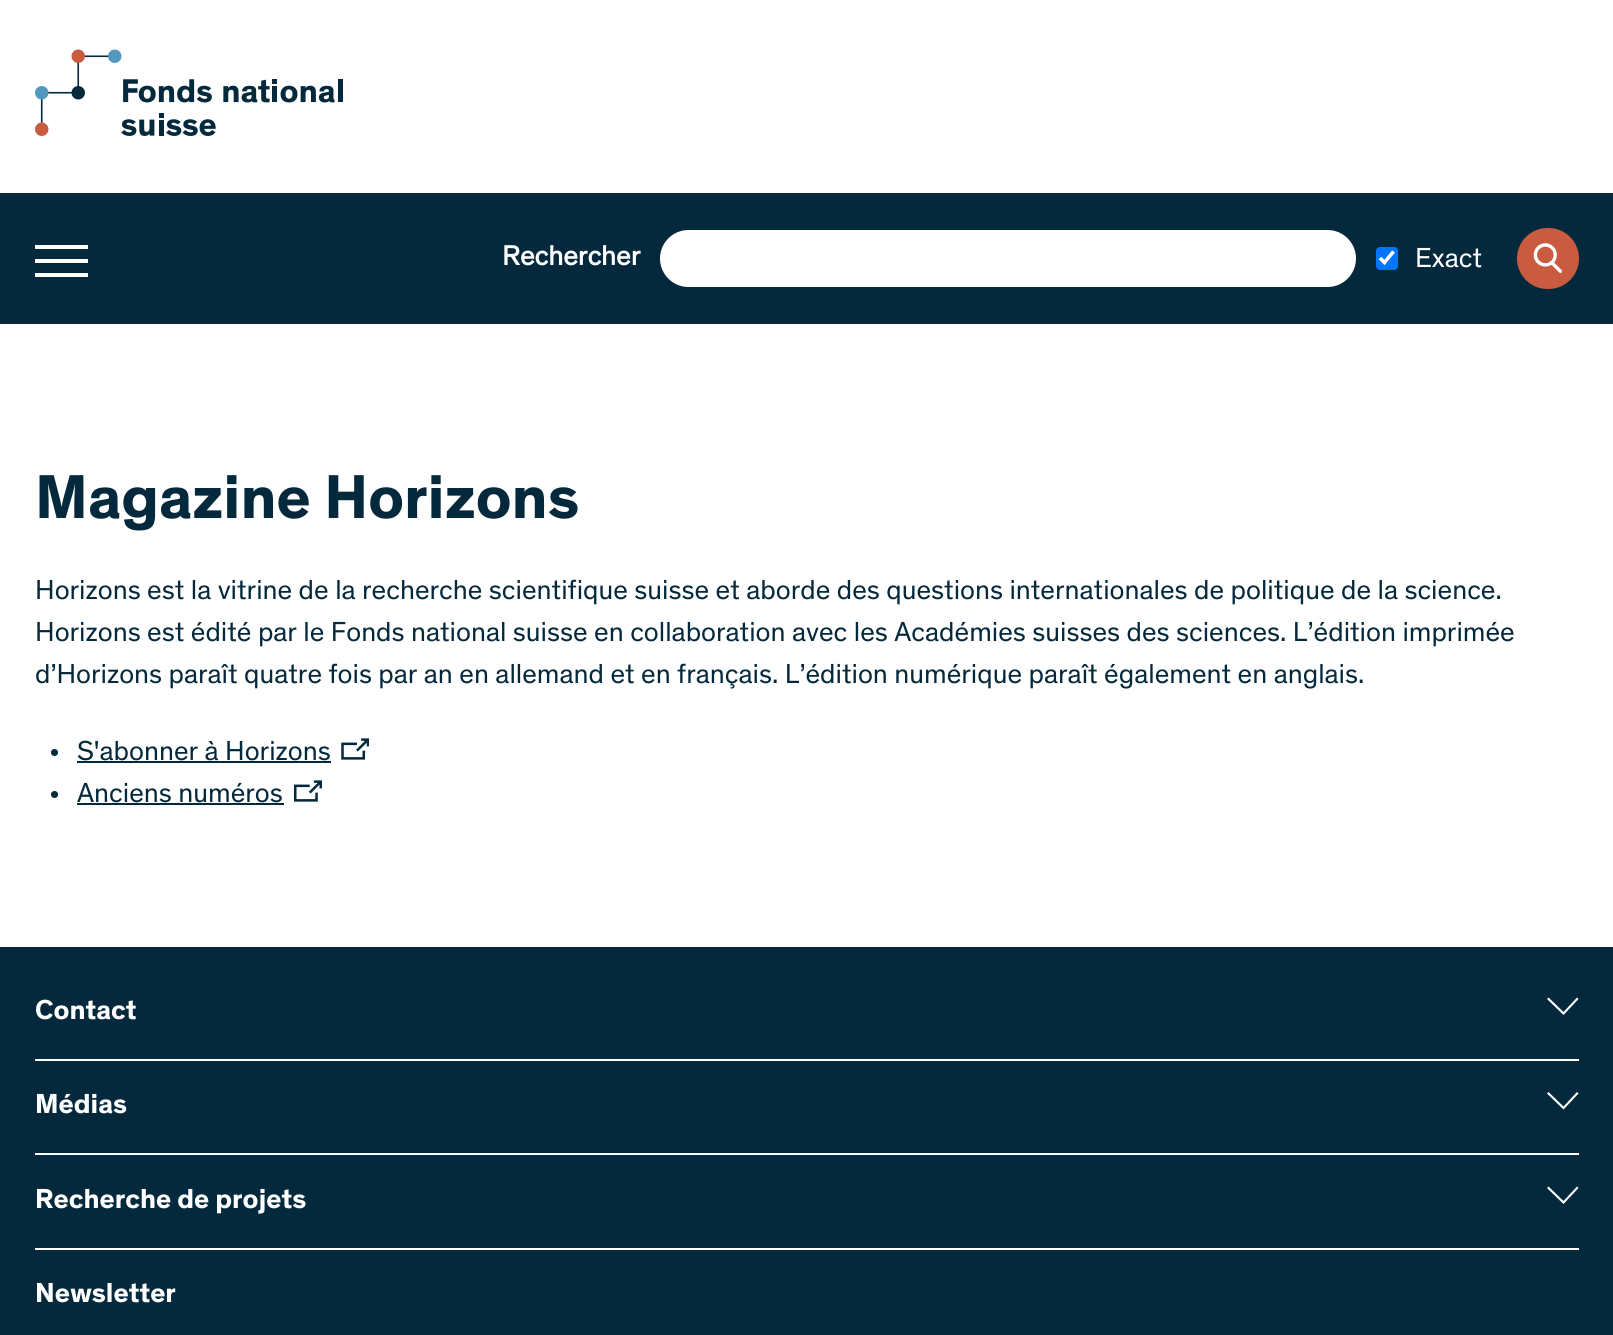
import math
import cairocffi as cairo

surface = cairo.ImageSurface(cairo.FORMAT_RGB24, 1613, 1335)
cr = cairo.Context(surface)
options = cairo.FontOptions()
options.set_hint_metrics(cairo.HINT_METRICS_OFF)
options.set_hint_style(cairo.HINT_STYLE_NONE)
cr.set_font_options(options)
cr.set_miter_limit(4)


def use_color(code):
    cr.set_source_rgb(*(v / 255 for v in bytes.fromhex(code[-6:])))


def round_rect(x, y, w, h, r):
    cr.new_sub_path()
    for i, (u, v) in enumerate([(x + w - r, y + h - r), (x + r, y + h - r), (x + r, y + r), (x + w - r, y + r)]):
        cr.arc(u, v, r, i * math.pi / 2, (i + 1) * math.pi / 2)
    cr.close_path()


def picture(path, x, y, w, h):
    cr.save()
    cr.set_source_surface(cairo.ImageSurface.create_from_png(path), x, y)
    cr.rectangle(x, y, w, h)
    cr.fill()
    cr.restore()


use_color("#ffffff")
cr.paint()
picture("img1.png", 35, 49, 308, 87)
use_color("#04293c")
cr.rectangle(0, 193, 1613, 131)
cr.fill()
use_color("#ffffff")
cr.rectangle(35, 259, 53, 4)
cr.fill()
cr.rectangle(35, 245, 53, 4)
cr.fill()
cr.rectangle(35, 273, 53, 4)
cr.fill()
cr.select_font_face("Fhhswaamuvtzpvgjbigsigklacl", cairo.FONT_SLANT_NORMAL, cairo.FONT_WEIGHT_BOLD)
cr.set_font_size(28)
cr.move_to(502, 265)
cr.show_text("Rechercher")
round_rect(659, 229, 698, 59, 29.5)
cr.fill_preserve()
use_color("#04293c")
cr.stroke()
use_color("#0075ff")
round_rect(1376, 247, 22, 23, 4)
cr.fill()
cr.new_path()
cr.move_to(1380, 258)
cr.line_to(1384.5, 262.5)
cr.line_to(1393.5, 251.5)
use_color("#ffffff")
cr.set_line_width(3.6)
cr.stroke()
cr.select_font_face("Fhhswaamuvtzpvgjbigsigklacl")
cr.move_to(1415, 267)
cr.show_text("Exact")
use_color("#c95b40")
round_rect(1517, 228, 62, 61, 30.5)
cr.fill()
picture("img2.png", 1533, 243, 30, 30)
cr.select_font_face("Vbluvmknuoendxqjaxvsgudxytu", cairo.FONT_SLANT_NORMAL, cairo.FONT_WEIGHT_BOLD)
cr.set_font_size(63)
use_color("#04293c")
cr.move_to(35, 518)
cr.show_text("Magazine Horizons")
cr.select_font_face("Fhhswaamuvtzpvgjbigsigklacl")
cr.set_font_size(28)
cr.move_to(35, 599)
cr.show_text("Horizons est la vitrine de la recherche scientifique suisse et aborde des questions internationales de politique de la science.")
cr.move_to(35, 641)
cr.show_text("Horizons est édité par le Fonds national suisse en collaboration avec les Académies suisses des sciences. L’édition imprimée")
cr.move_to(35, 683)
cr.show_text("d’Horizons paraît quatre fois par an en allemand et en français. L’édition numérique paraît également en anglais.")
cr.new_path()
cr.arc(54.5, 752.5, 3.5, 0, 2 * math.pi)
cr.fill()
cr.move_to(77, 760)
cr.show_text("S'abonner à Horizons")
cr.rectangle(77, 761, 254, 2)
cr.fill()
picture("img3.png", 341, 738, 28, 22)
cr.arc(54.5, 794.5, 3.5, 0, 2 * math.pi)
cr.fill()
cr.move_to(77, 802)
cr.show_text("Anciens numéros")
cr.rectangle(77, 803, 207, 2)
cr.fill()
picture("img4.png", 294, 780, 28, 22)
cr.rectangle(0, 947, 1613, 388)
cr.fill()
cr.select_font_face("Vbluvmknuoendxqjaxvsgudxytu", cairo.FONT_SLANT_NORMAL, cairo.FONT_WEIGHT_BOLD)
use_color("#ffffff")
cr.move_to(35, 1019)
cr.show_text("Contact")
cr.new_path()
cr.move_to(1563.5, 1015)
cr.line_to(1547, 999)
cr.line_to(1548.5, 997.5)
cr.line_to(1563.5, 1012)
cr.line_to(1577, 997.5)
cr.line_to(1578.5, 999)
cr.close_path()
cr.fill()
cr.rectangle(35, 1059, 1544, 2)
cr.fill()
cr.move_to(35, 1113)
cr.show_text("Médias")
cr.new_path()
cr.move_to(1563.5, 1109.5)
cr.line_to(1547, 1093.5)
cr.line_to(1548.5, 1092)
cr.line_to(1563.5, 1106.5)
cr.line_to(1577, 1092)
cr.line_to(1578.5, 1093.5)
cr.close_path()
cr.fill()
cr.rectangle(35, 1153, 1544, 2)
cr.fill()
cr.move_to(35, 1208)
cr.show_text("Recherche de projets")
cr.new_path()
cr.move_to(1563.5, 1204)
cr.line_to(1547, 1188)
cr.line_to(1548.5, 1186.5)
cr.line_to(1563.5, 1201)
cr.line_to(1577, 1186.5)
cr.line_to(1578.5, 1188)
cr.close_path()
cr.fill()
cr.rectangle(35, 1248, 1544, 2)
cr.fill()
cr.move_to(35, 1302)
cr.show_text("Newsletter")
surface.write_to_png("result.png")
